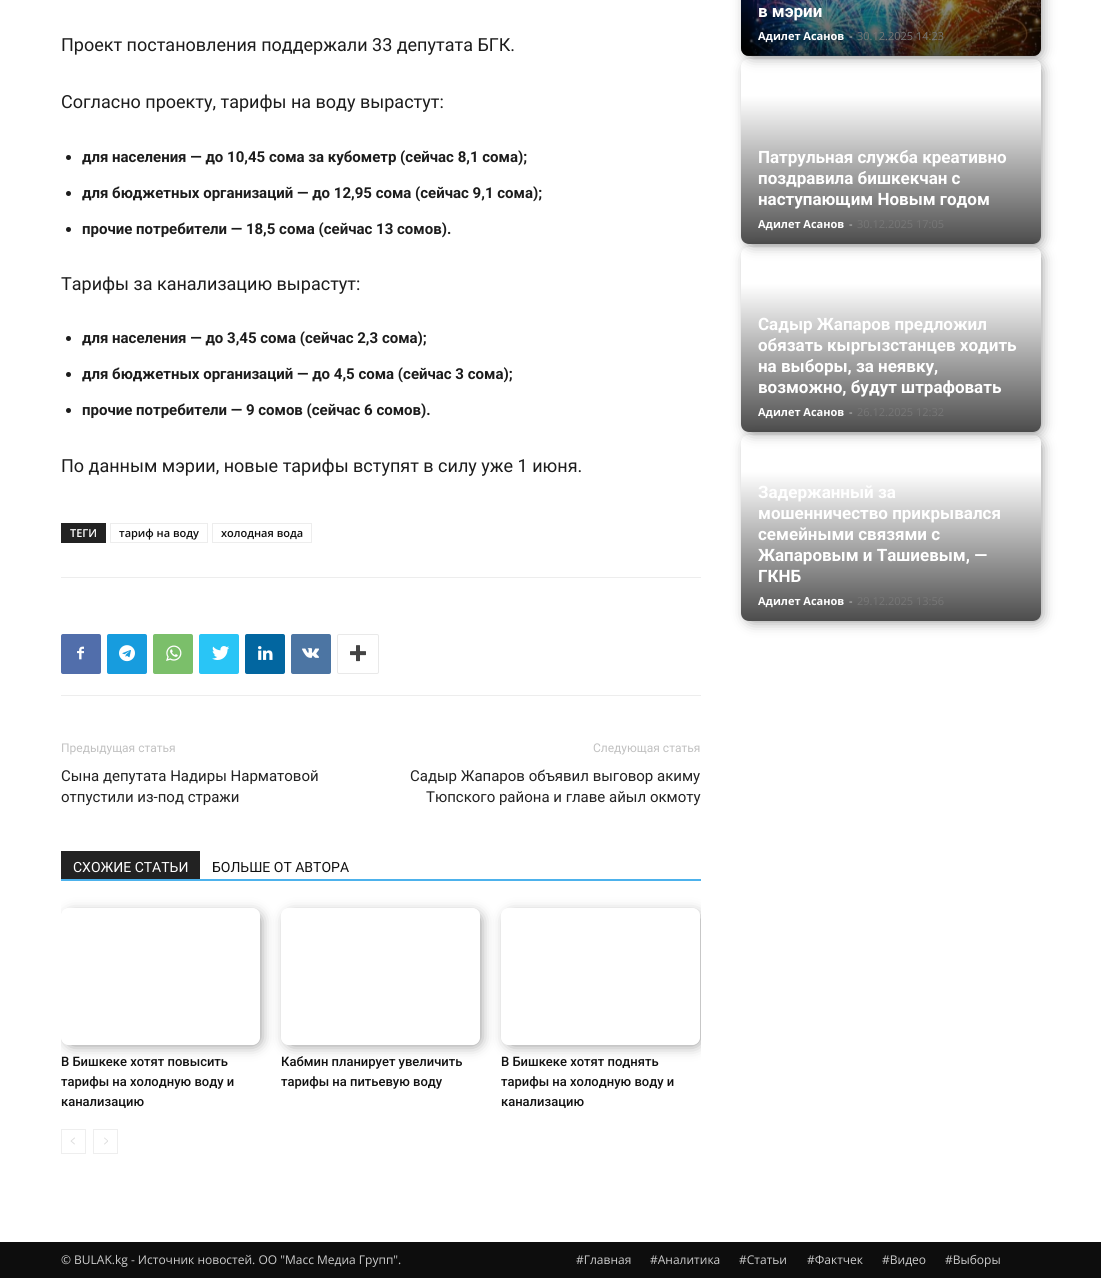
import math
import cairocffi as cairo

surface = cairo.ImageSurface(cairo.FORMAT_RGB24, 1101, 1278)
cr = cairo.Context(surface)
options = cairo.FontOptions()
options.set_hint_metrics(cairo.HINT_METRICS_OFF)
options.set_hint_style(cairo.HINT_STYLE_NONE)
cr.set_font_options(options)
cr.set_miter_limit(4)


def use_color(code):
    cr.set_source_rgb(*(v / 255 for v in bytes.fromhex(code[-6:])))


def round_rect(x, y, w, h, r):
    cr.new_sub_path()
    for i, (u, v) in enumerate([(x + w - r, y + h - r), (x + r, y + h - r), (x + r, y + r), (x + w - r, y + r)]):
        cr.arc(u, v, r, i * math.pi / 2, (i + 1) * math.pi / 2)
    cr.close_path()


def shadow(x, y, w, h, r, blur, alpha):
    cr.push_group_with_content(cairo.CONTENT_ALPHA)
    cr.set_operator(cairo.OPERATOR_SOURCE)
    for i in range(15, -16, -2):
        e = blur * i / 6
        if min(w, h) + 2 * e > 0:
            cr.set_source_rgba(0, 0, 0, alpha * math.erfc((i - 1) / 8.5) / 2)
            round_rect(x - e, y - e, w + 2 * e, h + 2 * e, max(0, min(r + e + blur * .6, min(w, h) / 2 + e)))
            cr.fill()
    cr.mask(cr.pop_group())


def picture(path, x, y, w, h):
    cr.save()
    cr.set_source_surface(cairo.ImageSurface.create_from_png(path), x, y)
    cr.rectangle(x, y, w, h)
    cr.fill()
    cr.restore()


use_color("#ffffff")
cr.paint()
cr.select_font_face("Roboto")
cr.set_font_size(18)
use_color("#1c1c1c")
cr.move_to(61, 51)
cr.show_text("Проект постановления поддержали 33 депутата БГК.")
cr.move_to(61, 108)
cr.show_text("Согласно проекту, тарифы на воду вырастут:")
cr.new_path()
cr.arc(68.5, 157.5, 2.5, 0, 2 * math.pi)
cr.fill()
cr.select_font_face("Roboto", cairo.FONT_SLANT_NORMAL, cairo.FONT_WEIGHT_BOLD)
cr.set_font_size(15)
cr.move_to(82, 162)
cr.show_text("для населения — до 10,45 сома за кубометр (сейчас 8,1 сома);")
cr.new_path()
cr.arc(68.5, 193.5, 2.5, 0, 2 * math.pi)
cr.fill()
cr.move_to(82, 198)
cr.show_text("для бюджетных организаций — до 12,95 сома (сейчас 9,1 сома);")
cr.new_path()
cr.arc(68.5, 229.5, 2.5, 0, 2 * math.pi)
cr.fill()
cr.move_to(82, 234)
cr.show_text("прочие потребители — 18,5 сома (сейчас 13 сомов).")
cr.select_font_face("Roboto")
cr.set_font_size(18)
cr.move_to(61, 290)
cr.show_text("Тарифы за канализацию вырастут:")
cr.new_path()
cr.arc(68.5, 338.5, 2.5, 0, 2 * math.pi)
cr.fill()
cr.select_font_face("Roboto", cairo.FONT_SLANT_NORMAL, cairo.FONT_WEIGHT_BOLD)
cr.set_font_size(15)
cr.move_to(82, 343)
cr.show_text("для населения — до 3,45 сома (сейчас 2,3 сома);")
cr.new_path()
cr.arc(68.5, 374.5, 2.5, 0, 2 * math.pi)
cr.fill()
cr.move_to(82, 379)
cr.show_text("для бюджетных организаций — до 4,5 сома (сейчас 3 сома);")
cr.new_path()
cr.arc(68.5, 410.5, 2.5, 0, 2 * math.pi)
cr.fill()
cr.move_to(82, 415)
cr.show_text("прочие потребители — 9 сомов (сейчас 6 сомов).")
cr.select_font_face("Roboto")
cr.set_font_size(18)
cr.move_to(61, 472)
cr.show_text("По данным мэрии, новые тарифы вступят в силу уже 1 июня.")
use_color("#222222")
cr.rectangle(61, 523, 45, 20)
cr.fill()
cr.select_font_face("Open Sans SemiBold")
cr.set_font_size(11)
use_color("#ffffff")
cr.move_to(70, 537)
cr.show_text("ТЕГИ")
cr.rectangle(110.5, 523.5, 97, 19)
use_color("#ededed")
cr.set_line_width(1)
cr.stroke()
use_color("#111111")
cr.move_to(119, 537)
cr.show_text("тариф на воду")
cr.rectangle(212.5, 523.5, 99, 19)
use_color("#ededed")
cr.stroke()
use_color("#111111")
cr.move_to(221, 537)
cr.show_text("холодная вода")
use_color("#ededed")
cr.rectangle(61, 577, 640, 1)
cr.fill()
cr.rectangle(61, 695, 640, 1)
cr.fill()
use_color("#516eab")
round_rect(61, 634, 40, 40, 2)
cr.fill()
picture("img1.png", 77, 646, 7, 14)
use_color("#179cde")
round_rect(107, 634, 40, 40, 2)
cr.fill()
picture("img2.png", 119, 645, 16, 17)
use_color("#7bbf6a")
round_rect(153, 634, 40, 40, 2)
cr.fill()
picture("img3.png", 166, 645, 16, 16)
use_color("#29c5f6")
round_rect(199, 634, 40, 40, 2)
cr.fill()
picture("img4.png", 212, 646, 18, 14)
use_color("#0266a0")
round_rect(245, 634, 40, 40, 2)
cr.fill()
picture("img5.png", 258, 646, 15, 14)
use_color("#4c75a3")
round_rect(291, 634, 40, 40, 2)
cr.fill()
picture("img6.png", 302, 648, 17, 10)
round_rect(337.5, 634.5, 41, 39, 1.5)
use_color("#e9e9e9")
cr.stroke()
picture("img7.png", 350, 645, 16, 17)
cr.select_font_face("Roboto")
cr.set_font_size(12)
use_color("#c1c1c1")
cr.move_to(61, 752)
cr.show_text("Предыдущая статья")
cr.set_font_size(15)
use_color("#222222")
cr.move_to(61, 781)
cr.show_text("Сына депутата Надиры Нарматовой")
cr.move_to(61, 802)
cr.show_text("отпустили из-под стражи")
cr.set_font_size(12)
use_color("#c1c1c1")
cr.move_to(593, 752)
cr.show_text("Следующая статья")
cr.set_font_size(15)
use_color("#222222")
cr.move_to(410, 781)
cr.show_text("Садыр Жапаров объявил выговор акиму")
cr.move_to(426, 802)
cr.show_text("Тюпского района и главе айыл окмоту")
use_color("#4db2ec")
cr.rectangle(61, 879, 640, 2)
cr.fill()
use_color("#222222")
cr.rectangle(61, 851, 139, 28)
cr.fill()
cr.set_font_size(14)
use_color("#ffffff")
cr.move_to(73, 872)
cr.show_text("СХОЖИЕ СТАТЬИ")
use_color("#111111")
cr.move_to(212, 872)
cr.show_text("БОЛЬШЕ ОТ АВТОРА")
cr.save()
cr.rectangle(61, 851, 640, 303)
cr.clip()
cr.set_fill_rule(cairo.FILL_RULE_EVEN_ODD)
cr.new_path()
cr.move_to(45, 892)
cr.line_to(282, 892)
cr.line_to(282, 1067)
cr.line_to(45, 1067)
cr.close_path()
cr.move_to(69, 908)
cr.line_to(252, 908)
cr.curve_to(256.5, 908, 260, 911.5, 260, 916)
cr.line_to(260, 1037)
cr.curve_to(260, 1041.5, 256.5, 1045, 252, 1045)
cr.line_to(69, 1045)
cr.curve_to(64.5, 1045, 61, 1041.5, 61, 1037)
cr.line_to(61, 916)
cr.curve_to(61, 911.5, 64.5, 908, 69, 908)
cr.close_path()
cr.clip()
use_color("#000000")
shadow(69, 916, 189, 127, 3, 7.5, 0.6)
cr.restore()
cr.select_font_face("Roboto Medium")
cr.set_font_size(13)
cr.move_to(61, 1066)
cr.show_text("В Бишкеке хотят повысить")
cr.move_to(61, 1086)
cr.show_text("тарифы на холодную воду и")
cr.move_to(61, 1106)
cr.show_text("канализацию")
cr.save()
cr.set_fill_rule(cairo.FILL_RULE_EVEN_ODD)
cr.new_path()
cr.move_to(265, 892)
cr.line_to(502, 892)
cr.line_to(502, 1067)
cr.line_to(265, 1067)
cr.close_path()
cr.move_to(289, 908)
cr.line_to(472, 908)
cr.curve_to(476.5, 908, 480, 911.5, 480, 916)
cr.line_to(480, 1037)
cr.curve_to(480, 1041.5, 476.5, 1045, 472, 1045)
cr.line_to(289, 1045)
cr.curve_to(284.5, 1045, 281, 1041.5, 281, 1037)
cr.line_to(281, 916)
cr.curve_to(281, 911.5, 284.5, 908, 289, 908)
cr.close_path()
cr.clip()
use_color("#000000")
shadow(289, 916, 189, 127, 3, 7.5, 0.6)
cr.restore()
cr.move_to(281, 1066)
cr.show_text("Кабмин планирует увеличить")
cr.move_to(281, 1086)
cr.show_text("тарифы на питьевую воду")
cr.save()
cr.rectangle(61, 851, 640, 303)
cr.clip()
cr.set_fill_rule(cairo.FILL_RULE_EVEN_ODD)
cr.new_path()
cr.move_to(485, 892)
cr.line_to(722, 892)
cr.line_to(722, 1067)
cr.line_to(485, 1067)
cr.close_path()
cr.move_to(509, 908)
cr.line_to(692, 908)
cr.curve_to(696.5, 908, 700, 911.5, 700, 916)
cr.line_to(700, 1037)
cr.curve_to(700, 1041.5, 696.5, 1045, 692, 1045)
cr.line_to(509, 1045)
cr.curve_to(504.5, 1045, 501, 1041.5, 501, 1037)
cr.line_to(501, 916)
cr.curve_to(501, 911.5, 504.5, 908, 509, 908)
cr.close_path()
cr.clip()
use_color("#000000")
shadow(509, 916, 189, 127, 3, 7.5, 0.6)
cr.restore()
cr.move_to(501, 1066)
cr.show_text("В Бишкеке хотят поднять")
cr.move_to(501, 1086)
cr.show_text("тарифы на холодную воду и")
cr.move_to(501, 1106)
cr.show_text("канализацию")
cr.rectangle(61.5, 1129.5, 24, 24)
use_color("#eeeeee")
cr.stroke()
picture("img8.png", 70, 1137, 5, 8)
cr.rectangle(93.5, 1129.5, 24, 24)
cr.stroke()
picture("img9.png", 104, 1137, 4, 8)
use_color("#000000")
shadow(749, -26, 290, 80, 3, 7.5, 0.6)
picture("img10.png", 741, 0, 300, 56)
cr.save()
cr.set_fill_rule(cairo.FILL_RULE_EVEN_ODD)
cr.new_path()
cr.move_to(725, 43)
cr.line_to(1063, 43)
cr.line_to(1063, 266)
cr.line_to(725, 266)
cr.close_path()
cr.move_to(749, 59)
cr.line_to(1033, 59)
cr.curve_to(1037.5, 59, 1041, 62.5, 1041, 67)
cr.line_to(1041, 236)
cr.curve_to(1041, 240.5, 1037.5, 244, 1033, 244)
cr.line_to(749, 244)
cr.curve_to(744.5, 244, 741, 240.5, 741, 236)
cr.line_to(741, 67)
cr.curve_to(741, 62.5, 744.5, 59, 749, 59)
cr.close_path()
cr.clip()
shadow(749, 67, 290, 175, 3, 7.5, 0.6)
cr.restore()
gradient = cairo.LinearGradient(891, -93, 891, 56)
gradient.add_color_stop_rgba(0, 0, 0, 0, 0)
gradient.add_color_stop_rgba(1, 0, 0, 0, 0.7)
cr.set_source(gradient)
cr.new_path()
cr.move_to(741, -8)
cr.line_to(1041, -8)
cr.line_to(1041, 48)
cr.curve_to(1041, 52.5, 1037.5, 56, 1033, 56)
cr.line_to(749, 56)
cr.curve_to(744.5, 56, 741, 52.5, 741, 48)
cr.close_path()
cr.fill()
cr.select_font_face("Roboto", cairo.FONT_SLANT_NORMAL, cairo.FONT_WEIGHT_BOLD)
cr.set_font_size(17)
use_color("#ffffff")
cr.move_to(758, 17)
cr.show_text("в мэрии")
cr.select_font_face("Open Sans", cairo.FONT_SLANT_NORMAL, cairo.FONT_WEIGHT_BOLD)
cr.set_font_size(11)
cr.move_to(758, 40)
cr.show_text("Адилет Асанов")
cr.select_font_face("Open Sans")
use_color("#cccccc")
cr.move_to(849, 40)
cr.show_text("-")
use_color("#767676")
cr.move_to(857, 40)
cr.show_text("30.12.2025 14:23")
cr.save()
cr.set_fill_rule(cairo.FILL_RULE_EVEN_ODD)
cr.new_path()
cr.move_to(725, 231)
cr.line_to(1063, 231)
cr.line_to(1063, 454)
cr.line_to(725, 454)
cr.close_path()
cr.move_to(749, 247)
cr.line_to(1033, 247)
cr.curve_to(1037.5, 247, 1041, 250.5, 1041, 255)
cr.line_to(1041, 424)
cr.curve_to(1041, 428.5, 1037.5, 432, 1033, 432)
cr.line_to(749, 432)
cr.curve_to(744.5, 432, 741, 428.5, 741, 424)
cr.line_to(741, 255)
cr.curve_to(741, 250.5, 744.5, 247, 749, 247)
cr.close_path()
cr.clip()
use_color("#000000")
shadow(749, 255, 290, 175, 3, 7.5, 0.6)
cr.restore()
gradient = cairo.LinearGradient(891, 96, 891, 244)
gradient.add_color_stop_rgba(0, 0, 0, 0, 0)
gradient.add_color_stop_rgba(1, 0, 0, 0, 0.7)
cr.set_source(gradient)
cr.new_path()
cr.move_to(741, 96)
cr.line_to(1041, 96)
cr.line_to(1041, 236)
cr.curve_to(1041, 240.5, 1037.5, 244, 1033, 244)
cr.line_to(749, 244)
cr.curve_to(744.5, 244, 741, 240.5, 741, 236)
cr.close_path()
cr.fill()
cr.select_font_face("Roboto", cairo.FONT_SLANT_NORMAL, cairo.FONT_WEIGHT_BOLD)
cr.set_font_size(17)
use_color("#ffffff")
cr.move_to(758, 163)
cr.show_text("Патрульная служба креативно")
cr.move_to(758, 184)
cr.show_text("поздравила бишкекчан с")
cr.move_to(758, 205)
cr.show_text("наступающим Новым годом")
cr.select_font_face("Open Sans", cairo.FONT_SLANT_NORMAL, cairo.FONT_WEIGHT_BOLD)
cr.set_font_size(11)
cr.move_to(758, 228)
cr.show_text("Адилет Асанов")
cr.select_font_face("Open Sans")
use_color("#cccccc")
cr.move_to(849, 228)
cr.show_text("-")
use_color("#767676")
cr.move_to(857, 228)
cr.show_text("30.12.2025 17:05")
cr.save()
cr.set_fill_rule(cairo.FILL_RULE_EVEN_ODD)
cr.new_path()
cr.move_to(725, 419)
cr.line_to(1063, 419)
cr.line_to(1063, 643)
cr.line_to(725, 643)
cr.close_path()
cr.move_to(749, 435)
cr.line_to(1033, 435)
cr.curve_to(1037.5, 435, 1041, 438.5, 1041, 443)
cr.line_to(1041, 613)
cr.curve_to(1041, 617.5, 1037.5, 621, 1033, 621)
cr.line_to(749, 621)
cr.curve_to(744.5, 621, 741, 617.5, 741, 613)
cr.line_to(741, 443)
cr.curve_to(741, 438.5, 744.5, 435, 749, 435)
cr.close_path()
cr.clip()
use_color("#000000")
shadow(749, 443, 290, 176, 3, 7.5, 0.6)
cr.restore()
gradient = cairo.LinearGradient(891, 284, 891, 432)
gradient.add_color_stop_rgba(0, 0, 0, 0, 0)
gradient.add_color_stop_rgba(1, 0, 0, 0, 0.7)
cr.set_source(gradient)
cr.new_path()
cr.move_to(741, 284)
cr.line_to(1041, 284)
cr.line_to(1041, 424)
cr.curve_to(1041, 428.5, 1037.5, 432, 1033, 432)
cr.line_to(749, 432)
cr.curve_to(744.5, 432, 741, 428.5, 741, 424)
cr.close_path()
cr.fill()
cr.select_font_face("Roboto", cairo.FONT_SLANT_NORMAL, cairo.FONT_WEIGHT_BOLD)
cr.set_font_size(17)
use_color("#ffffff")
cr.move_to(758, 330)
cr.show_text("Садыр Жапаров предложил")
cr.move_to(758, 351)
cr.show_text("обязать кыргызстанцев ходить")
cr.move_to(758, 372)
cr.show_text("на выборы, за неявку,")
cr.move_to(758, 393)
cr.show_text("возможно, будут штрафовать")
cr.select_font_face("Open Sans", cairo.FONT_SLANT_NORMAL, cairo.FONT_WEIGHT_BOLD)
cr.set_font_size(11)
cr.move_to(758, 416)
cr.show_text("Адилет Асанов")
cr.select_font_face("Open Sans")
use_color("#cccccc")
cr.move_to(849, 416)
cr.show_text("-")
use_color("#767676")
cr.move_to(857, 416)
cr.show_text("26.12.2025 12:32")
gradient = cairo.LinearGradient(891, 472, 891, 621)
gradient.add_color_stop_rgba(0, 0, 0, 0, 0)
gradient.add_color_stop_rgba(1, 0, 0, 0, 0.7)
cr.set_source(gradient)
cr.new_path()
cr.move_to(741, 472)
cr.line_to(1041, 472)
cr.line_to(1041, 613)
cr.curve_to(1041, 617.5, 1037.5, 621, 1033, 621)
cr.line_to(749, 621)
cr.curve_to(744.5, 621, 741, 617.5, 741, 613)
cr.close_path()
cr.fill()
cr.select_font_face("Roboto", cairo.FONT_SLANT_NORMAL, cairo.FONT_WEIGHT_BOLD)
cr.set_font_size(17)
use_color("#ffffff")
cr.move_to(758, 498)
cr.show_text("Задержанный за")
cr.move_to(758, 519)
cr.show_text("мошенничество прикрывался")
cr.move_to(758, 540)
cr.show_text("семейными связями с")
cr.move_to(758, 561)
cr.show_text("Жапаровым и Ташиевым, —")
cr.move_to(758, 582)
cr.show_text("ГКНБ")
cr.select_font_face("Open Sans", cairo.FONT_SLANT_NORMAL, cairo.FONT_WEIGHT_BOLD)
cr.set_font_size(11)
cr.move_to(758, 605)
cr.show_text("Адилет Асанов")
cr.select_font_face("Open Sans")
use_color("#cccccc")
cr.move_to(849, 605)
cr.show_text("-")
use_color("#767676")
cr.move_to(857, 605)
cr.show_text("29.12.2025 13:56")
use_color("#0d0d0d")
cr.rectangle(0, 1242, 1101, 36)
cr.fill()
cr.set_font_size(12)
use_color("#cccccc")
cr.move_to(61, 1264)
cr.show_text("© BULAK.kg - Источник новостей. ОО \"Масс Медиа Групп\".")
cr.move_to(576, 1264)
cr.show_text("#Главная")
cr.move_to(650, 1264)
cr.show_text("#Аналитика")
cr.move_to(739, 1264)
cr.show_text("#Статьи")
cr.move_to(807, 1264)
cr.show_text("#Фактчек")
cr.move_to(882, 1264)
cr.show_text("#Видео")
cr.move_to(945, 1264)
cr.show_text("#Выборы")
surface.write_to_png("result.png")
